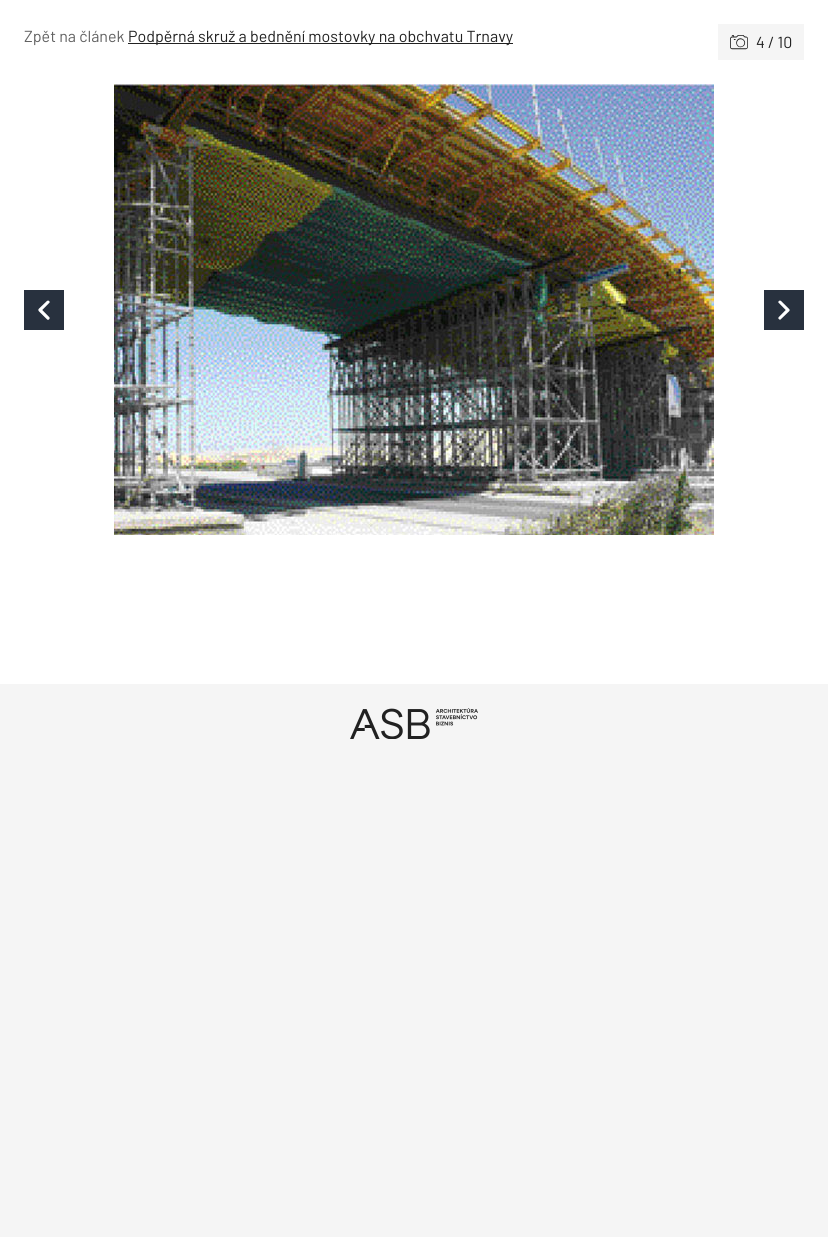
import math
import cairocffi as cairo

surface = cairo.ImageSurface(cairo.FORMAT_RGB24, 828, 1237)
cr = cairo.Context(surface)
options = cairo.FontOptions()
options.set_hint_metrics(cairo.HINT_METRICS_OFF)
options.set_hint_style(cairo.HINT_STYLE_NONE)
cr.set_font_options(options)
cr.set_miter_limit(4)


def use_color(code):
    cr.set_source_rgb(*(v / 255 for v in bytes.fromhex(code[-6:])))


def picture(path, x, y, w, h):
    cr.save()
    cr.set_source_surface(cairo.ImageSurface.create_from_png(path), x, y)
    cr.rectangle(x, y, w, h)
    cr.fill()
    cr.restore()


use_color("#ffffff")
cr.paint()
cr.select_font_face("Barlow")
cr.set_font_size(16)
use_color("#616161")
cr.move_to(24, 42)
cr.show_text("Zpět na článek")
use_color("#212121")
cr.rectangle(128, 43, 385, 1)
cr.fill()
cr.move_to(128, 42)
cr.show_text("Podpěrná skruž a bednění mostovky na obchvatu Trnavy")
use_color("#f5f5f5")
cr.rectangle(718, 24, 86, 36)
cr.fill()
picture("img1.png", 730, 35, 18, 15)
use_color("#212121")
cr.move_to(756, 48)
cr.show_text("4 / 10")
use_color("#28313e")
cr.rectangle(24, 290, 40, 40)
cr.fill()
picture("img2.png", 38, 300, 12, 20)
picture("img3.png", 114, 84, 600, 451)
cr.rectangle(764, 290, 40, 40)
cr.fill()
picture("img4.png", 778, 300, 12, 20)
use_color("#f5f5f5")
cr.rectangle(0, 684, 828, 553)
cr.fill()
picture("img5.png", 350, 708, 128, 31)
surface.write_to_png("result.png")
